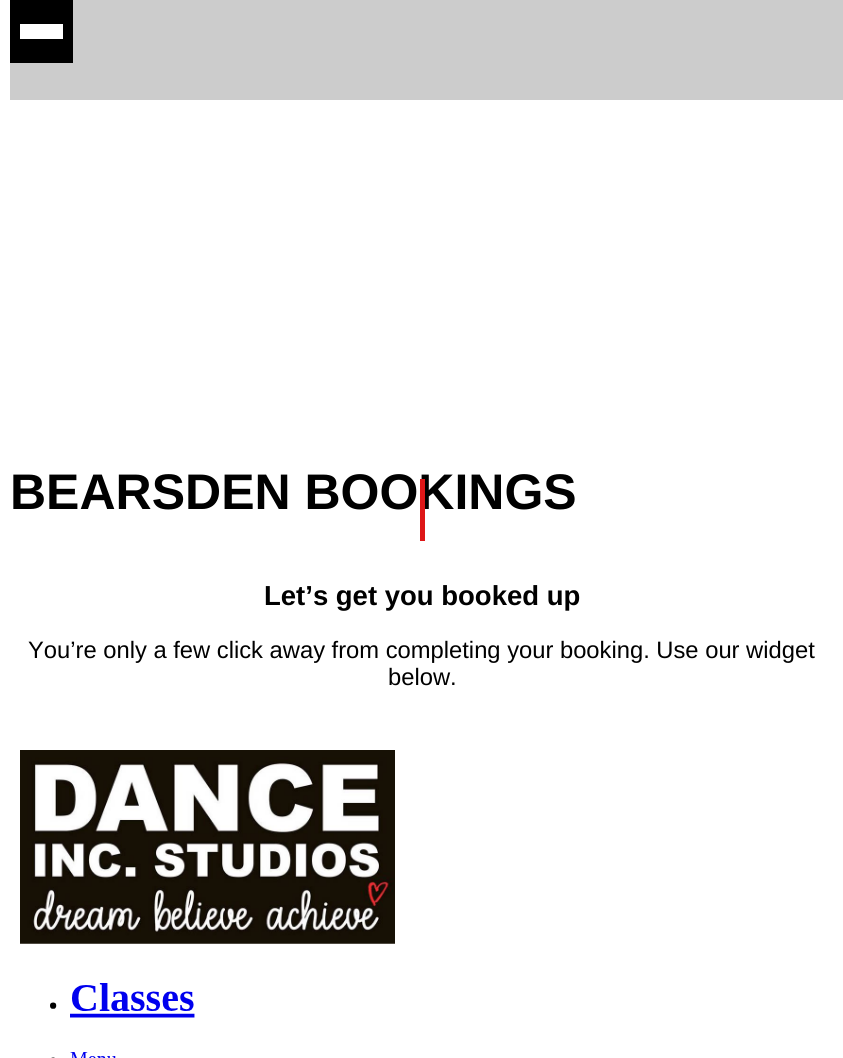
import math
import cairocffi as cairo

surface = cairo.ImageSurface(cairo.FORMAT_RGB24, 843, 1058)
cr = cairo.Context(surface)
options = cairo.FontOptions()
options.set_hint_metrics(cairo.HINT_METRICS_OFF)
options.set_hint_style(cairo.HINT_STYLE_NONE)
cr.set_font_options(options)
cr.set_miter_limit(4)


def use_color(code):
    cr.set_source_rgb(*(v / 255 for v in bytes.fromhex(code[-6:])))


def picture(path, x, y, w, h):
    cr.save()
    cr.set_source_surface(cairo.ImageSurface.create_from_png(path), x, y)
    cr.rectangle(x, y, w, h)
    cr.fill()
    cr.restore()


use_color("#ffffff")
cr.paint()
use_color("#cccccc")
cr.rectangle(10, 0, 833, 100)
cr.fill()
use_color("#000000")
cr.rectangle(10, 0, 63, 63)
cr.fill()
use_color("#ffffff")
cr.rectangle(20, 24, 43, 15)
cr.fill()
cr.select_font_face("Liberation Sans", cairo.FONT_SLANT_NORMAL, cairo.FONT_WEIGHT_BOLD)
cr.set_font_size(50)
use_color("#000000")
cr.move_to(10, 509)
cr.show_text("BEARSDEN BOOKINGS")
cr.set_font_size(27.5)
cr.move_to(264, 605)
cr.show_text("Let’s get you booked up")
cr.select_font_face("Liberation Sans")
cr.set_font_size(23.75)
cr.move_to(28, 658)
cr.show_text("You’re only a few click away from completing your booking. Use our widget")
cr.move_to(388, 685)
cr.show_text("below.")
picture("img1.png", 20, 750, 375, 308)
use_color("#de1617")
cr.rectangle(420, 479, 5, 62)
cr.fill()
surface.write_to_png("result.png")
